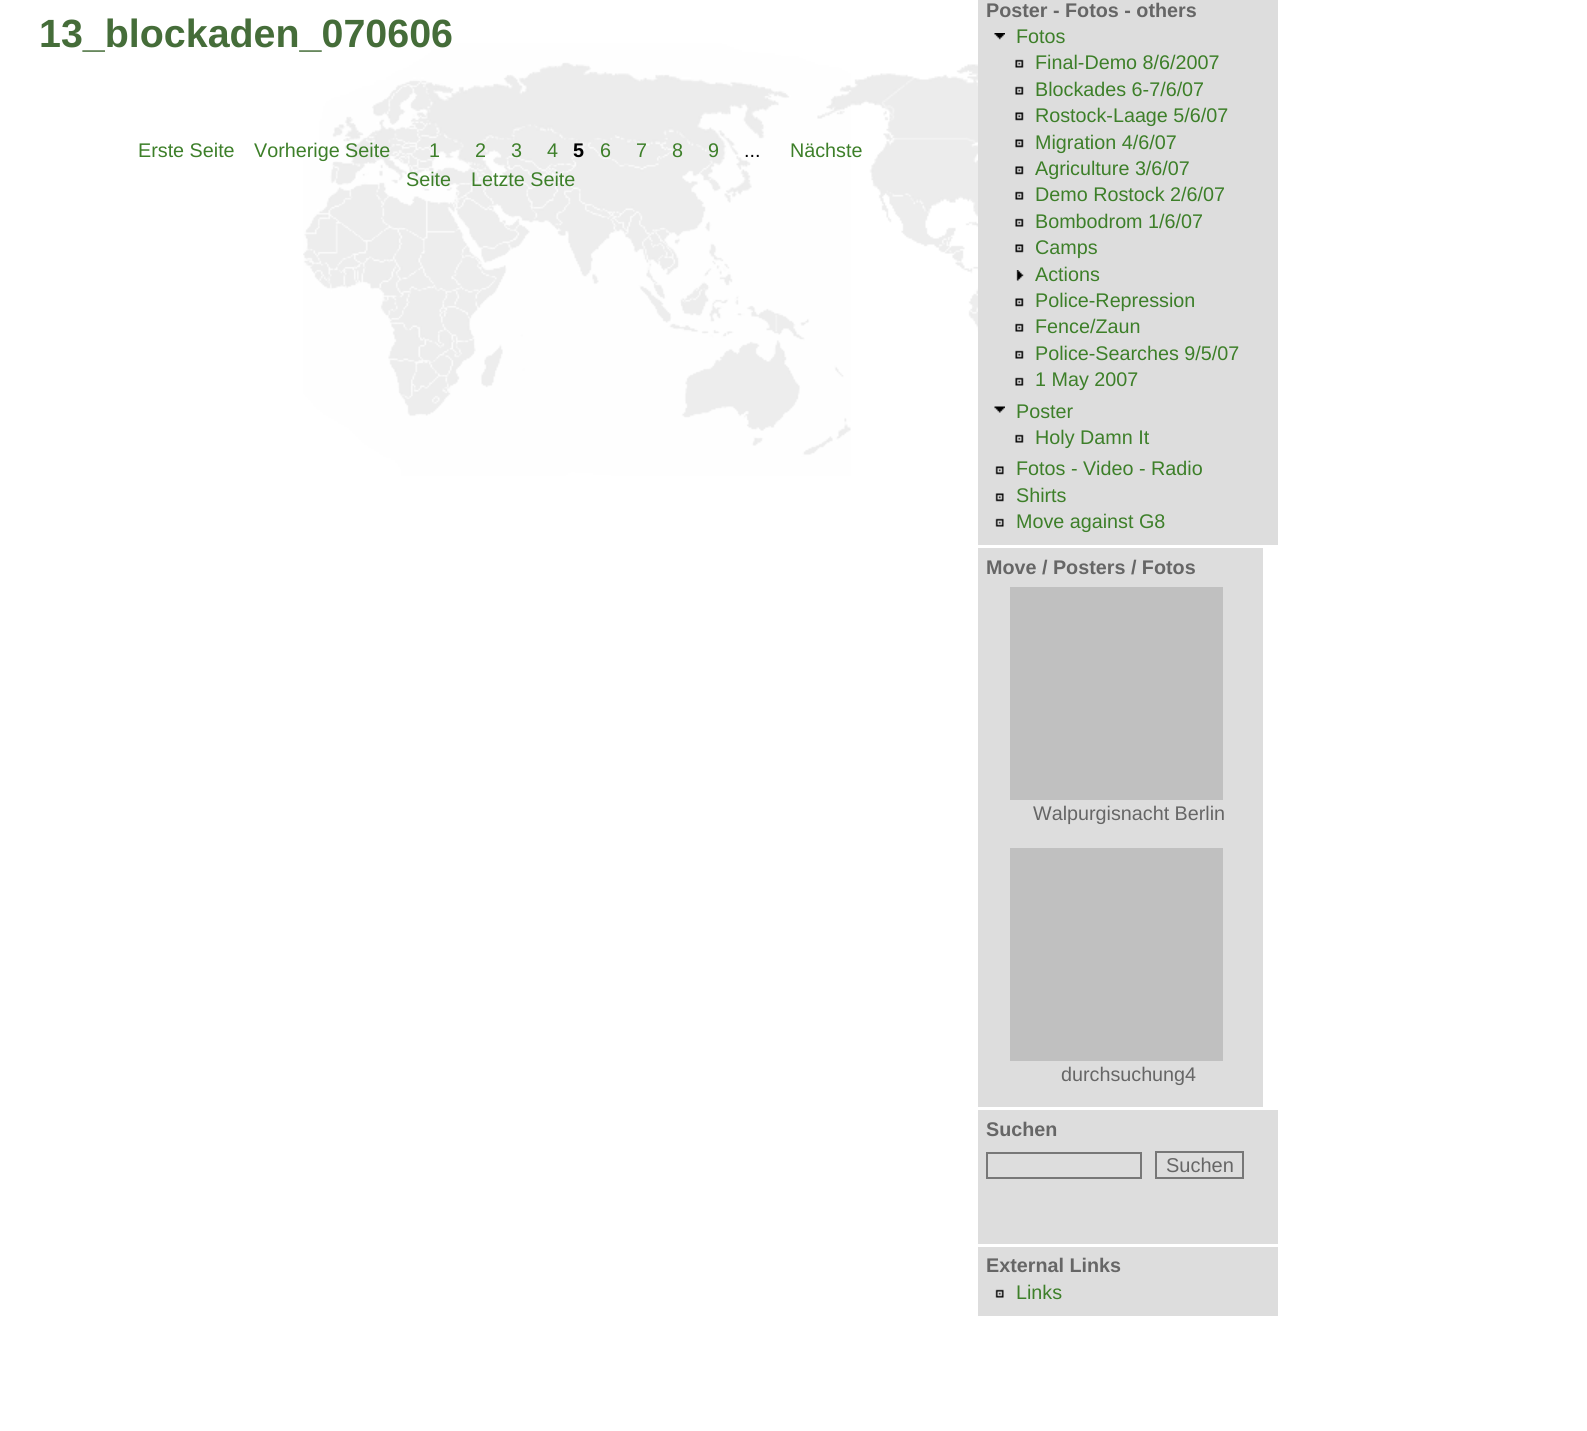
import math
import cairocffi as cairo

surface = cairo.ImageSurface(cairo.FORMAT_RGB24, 1587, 1431)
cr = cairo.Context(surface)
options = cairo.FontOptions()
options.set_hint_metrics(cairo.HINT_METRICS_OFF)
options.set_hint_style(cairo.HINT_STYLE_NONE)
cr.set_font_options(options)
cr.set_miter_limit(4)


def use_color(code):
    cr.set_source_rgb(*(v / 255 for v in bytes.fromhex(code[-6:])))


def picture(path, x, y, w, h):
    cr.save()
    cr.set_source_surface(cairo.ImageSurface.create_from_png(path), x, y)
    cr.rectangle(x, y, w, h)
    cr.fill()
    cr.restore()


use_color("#ffffff")
cr.paint()
picture("img1.png", 303, 43, 675, 433)
cr.select_font_face("Liberation Sans", cairo.FONT_SLANT_NORMAL, cairo.FONT_WEIGHT_BOLD)
cr.set_font_size(39.4)
use_color("#456d39")
cr.move_to(39, 47)
cr.show_text("13_blockaden_070606")
cr.select_font_face("Liberation Sans")
cr.set_font_size(19.75)
use_color("#3d7f29")
cr.move_to(138, 157)
cr.show_text("Erste Seite")
cr.move_to(254, 157)
cr.show_text("Vorherige Seite")
cr.move_to(429, 157)
cr.show_text("1")
cr.move_to(475, 157)
cr.show_text("2")
cr.move_to(511, 157)
cr.show_text("3")
cr.move_to(547, 157)
cr.show_text("4")
cr.select_font_face("Liberation Sans", cairo.FONT_SLANT_NORMAL, cairo.FONT_WEIGHT_BOLD)
use_color("#000000")
cr.move_to(573, 157)
cr.show_text("5")
cr.select_font_face("Liberation Sans")
use_color("#3d7f29")
cr.move_to(600, 157)
cr.show_text("6")
cr.move_to(636, 157)
cr.show_text("7")
cr.move_to(672, 157)
cr.show_text("8")
cr.move_to(708, 157)
cr.show_text("9")
use_color("#000000")
cr.move_to(744, 157)
cr.show_text("...")
use_color("#3d7f29")
cr.move_to(790, 157)
cr.show_text("Nächste")
cr.move_to(406, 186)
cr.show_text("Seite")
cr.move_to(471, 186)
cr.show_text("Letzte Seite")
use_color("#dddddd")
cr.rectangle(978, 0, 300, 545)
cr.fill()
cr.select_font_face("Liberation Sans", cairo.FONT_SLANT_NORMAL, cairo.FONT_WEIGHT_BOLD)
use_color("#666666")
cr.move_to(986, 17)
cr.show_text("Poster - Fotos - others")
picture("img2.png", 994, 33, 11, 7)
cr.select_font_face("Liberation Sans")
use_color("#3d7f29")
cr.move_to(1016, 43)
cr.show_text("Fotos")
picture("img3.png", 1015, 59, 9, 9)
cr.move_to(1035, 69)
cr.show_text("Final-Demo 8/6/2007")
picture("img3.png", 1015, 86, 9, 9)
cr.move_to(1035, 96)
cr.show_text("Blockades 6-7/6/07")
picture("img4.png", 1015, 112, 9, 9)
cr.move_to(1035, 122)
cr.show_text("Rostock-Laage 5/6/07")
picture("img4.png", 1015, 139, 9, 9)
cr.move_to(1035, 149)
cr.show_text("Migration 4/6/07")
picture("img4.png", 1015, 166, 9, 9)
cr.move_to(1035, 175)
cr.show_text("Agriculture 3/6/07")
picture("img3.png", 1015, 191, 9, 9)
cr.move_to(1035, 201)
cr.show_text("Demo Rostock 2/6/07")
picture("img3.png", 1015, 218, 9, 9)
cr.move_to(1035, 228)
cr.show_text("Bombodrom 1/6/07")
picture("img4.png", 1015, 244, 9, 9)
cr.move_to(1035, 254)
cr.show_text("Camps")
picture("img5.png", 1016, 270, 8, 11)
cr.move_to(1035, 281)
cr.show_text("Actions")
picture("img4.png", 1015, 298, 9, 9)
cr.move_to(1035, 307)
cr.show_text("Police-Repression")
picture("img3.png", 1015, 323, 9, 9)
cr.move_to(1035, 333)
cr.show_text("Fence/Zaun")
picture("img3.png", 1015, 350, 9, 9)
cr.move_to(1035, 360)
cr.show_text("Police-Searches 9/5/07")
picture("img3.png", 1015, 377, 9, 9)
cr.move_to(1035, 386)
cr.show_text("1 May 2007")
picture("img6.png", 994, 406, 11, 7)
cr.move_to(1016, 418)
cr.show_text("Poster")
picture("img3.png", 1015, 434, 9, 9)
cr.move_to(1035, 444)
cr.show_text("Holy Damn It")
picture("img7.png", 995, 466, 9, 9)
cr.move_to(1016, 475)
cr.show_text("Fotos - Video - Radio")
picture("img7.png", 995, 493, 9, 9)
cr.move_to(1016, 502)
cr.show_text("Shirts")
picture("img8.png", 995, 518, 9, 9)
cr.move_to(1016, 528)
cr.show_text("Move against G8")
use_color("#dddddd")
cr.rectangle(978, 548, 285, 559)
cr.fill()
cr.select_font_face("Liberation Sans", cairo.FONT_SLANT_NORMAL, cairo.FONT_WEIGHT_BOLD)
use_color("#666666")
cr.move_to(986, 574)
cr.show_text("Move / Posters / Fotos")
use_color("#c0c0c0")
cr.rectangle(1010, 587, 213, 213)
cr.fill()
cr.select_font_face("Liberation Sans")
use_color("#666666")
cr.move_to(1033, 820)
cr.show_text("Walpurgisnacht Berlin")
use_color("#c0c0c0")
cr.rectangle(1010, 848, 213, 213)
cr.fill()
use_color("#666666")
cr.move_to(1061, 1081)
cr.show_text("durchsuchung4")
use_color("#dddddd")
cr.rectangle(978, 1110, 300, 134)
cr.fill()
cr.select_font_face("Liberation Sans", cairo.FONT_SLANT_NORMAL, cairo.FONT_WEIGHT_BOLD)
use_color("#666666")
cr.move_to(986, 1136)
cr.show_text("Suchen")
cr.rectangle(987, 1153, 154, 25)
use_color("#777777")
cr.stroke()
cr.rectangle(1156, 1152, 87, 26)
cr.stroke()
cr.select_font_face("Liberation Sans")
cr.set_font_size(20)
use_color("#666666")
cr.move_to(1166, 1172)
cr.show_text("Suchen")
use_color("#dddddd")
cr.rectangle(978, 1247, 300, 69)
cr.fill()
cr.select_font_face("Liberation Sans", cairo.FONT_SLANT_NORMAL, cairo.FONT_WEIGHT_BOLD)
cr.set_font_size(19.75)
use_color("#666666")
cr.move_to(986, 1272)
cr.show_text("External Links")
picture("img8.png", 995, 1289, 9, 9)
cr.select_font_face("Liberation Sans")
use_color("#3d7f29")
cr.move_to(1016, 1299)
cr.show_text("Links")
surface.write_to_png("result.png")
